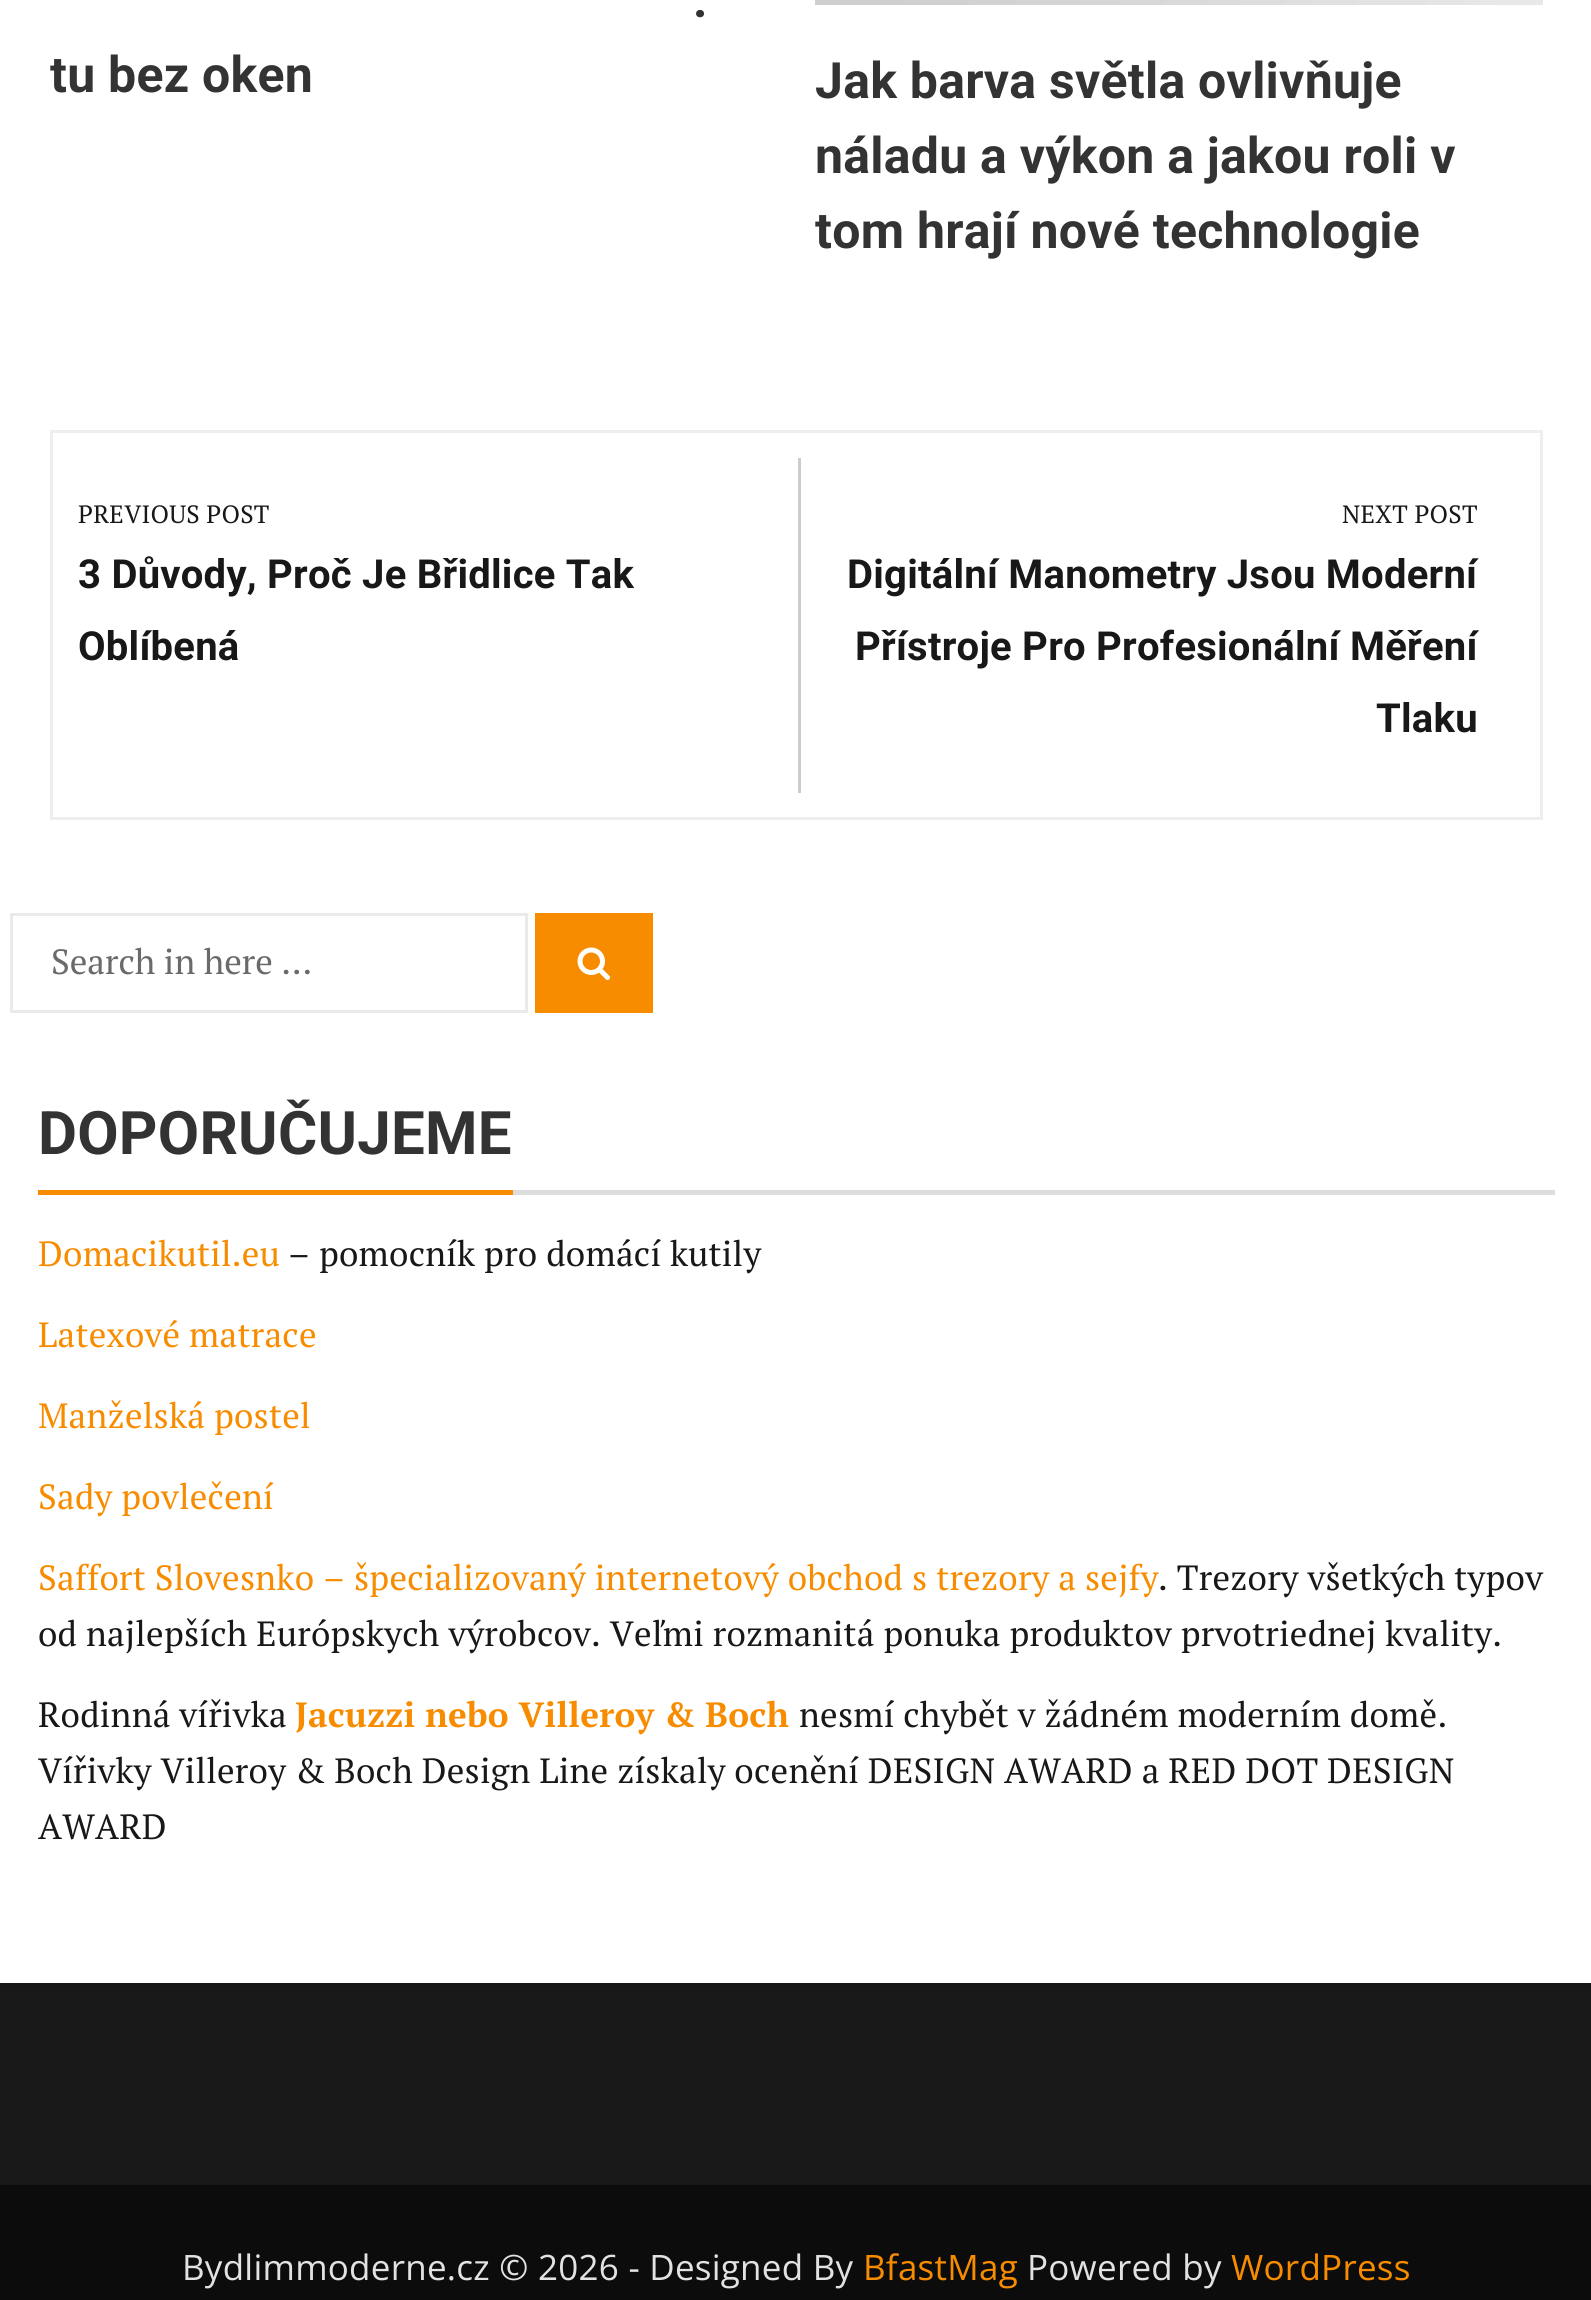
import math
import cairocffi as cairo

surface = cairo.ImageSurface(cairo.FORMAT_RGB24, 1591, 2300)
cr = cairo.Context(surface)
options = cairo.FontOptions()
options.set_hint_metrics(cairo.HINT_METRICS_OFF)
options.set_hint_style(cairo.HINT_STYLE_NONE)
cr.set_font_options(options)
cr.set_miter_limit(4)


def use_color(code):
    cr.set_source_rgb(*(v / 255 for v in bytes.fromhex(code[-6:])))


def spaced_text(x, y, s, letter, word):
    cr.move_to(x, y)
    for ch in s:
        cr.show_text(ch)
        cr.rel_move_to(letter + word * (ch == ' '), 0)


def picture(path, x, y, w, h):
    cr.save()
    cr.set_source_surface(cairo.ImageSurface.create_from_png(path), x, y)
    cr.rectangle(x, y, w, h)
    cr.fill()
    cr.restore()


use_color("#ffffff")
cr.paint()
cr.select_font_face("Roboto", cairo.FONT_SLANT_NORMAL, cairo.FONT_WEIGHT_BOLD)
cr.set_font_size(50)
use_color("#333333")
spaced_text(693, 17, ".", 0.25, 0)
spaced_text(50, 92, "tu bez oken", 0.25, 0)
picture("img1.png", 815, 0, 728, 5)
spaced_text(815, 98, "Jak barva světla ovlivňuje", 0.25, 0)
spaced_text(815, 173, "náladu a výkon a jakou roli v", 0.25, 0)
spaced_text(815, 248, "tom hrají nové technologie", 0.25, 0)
cr.rectangle(51.5, 431.5, 1490, 387)
use_color("#eeeeee")
cr.set_line_width(3)
cr.stroke()
cr.select_font_face("PT Serif")
cr.set_font_size(25)
use_color("#181818")
spaced_text(78, 523, "PREVIOUS POST", 0.25, 0)
cr.select_font_face("Roboto", cairo.FONT_SLANT_NORMAL, cairo.FONT_WEIGHT_BOLD)
cr.set_font_size(40)
spaced_text(78, 588, "3 Důvody, Proč Je Břidlice Tak", 0.25, 0)
spaced_text(78, 660, "Oblíbená", 0.25, 0)
use_color("#cccccc")
cr.rectangle(798, 458, 3, 335)
cr.fill()
cr.select_font_face("PT Serif")
cr.set_font_size(25)
use_color("#181818")
spaced_text(1342, 523, "NEXT POST", 0.25, 0)
cr.select_font_face("Roboto", cairo.FONT_SLANT_NORMAL, cairo.FONT_WEIGHT_BOLD)
cr.set_font_size(40)
spaced_text(847, 588, "Digitální Manometry Jsou Moderní", 0.25, 0)
spaced_text(855, 660, "Přístroje Pro Profesionální Měření", 0.25, 0)
spaced_text(1376, 732, "Tlaku", 0.25, 0)
cr.rectangle(11.5, 914.5, 515, 97)
use_color("#eaeaea")
cr.stroke()
cr.select_font_face("PT Serif")
cr.set_font_size(35)
use_color("#6a6a6a")
cr.move_to(51, 974)
cr.show_text("Search in here …")
use_color("#f88c00")
cr.rectangle(535, 913, 118, 100)
cr.fill()
picture("img2.png", 577, 947, 33, 33)
cr.select_font_face("Roboto", cairo.FONT_SLANT_NORMAL, cairo.FONT_WEIGHT_BOLD)
cr.set_font_size(60)
use_color("#333333")
spaced_text(38, 1154, "DOPORUČUJEME", 0.25, 0)
use_color("#f88c00")
cr.rectangle(38, 1190, 475, 5)
cr.fill()
use_color("#dddddd")
cr.rectangle(513, 1190, 1042, 5)
cr.fill()
cr.select_font_face("PT Serif")
cr.set_font_size(35)
use_color("#f88c00")
spaced_text(38, 1266, "Domacikutil.eu", 0.25, 0)
use_color("#181818")
spaced_text(288, 1266, "– pomocník pro domácí kutily", 0.25, 0)
use_color("#f88c00")
spaced_text(38, 1347, "Latexové matrace", 0.25, 0)
spaced_text(38, 1428, "Manželská postel", 0.25, 0)
spaced_text(38, 1509, "Sady povlečení", 0.25, 0)
spaced_text(38, 1590, "Saffort Slovesnko – špecializovaný internetový obchod s trezory a sejfy", 0.25, 0)
use_color("#181818")
spaced_text(1158, 1590, ". Trezory všetkých typov", 0.25, 0)
spaced_text(38, 1646, "od najlepších Európskych výrobcov. Veľmi rozmanitá ponuka produktov prvotriednej kvality.", 0.25, 0)
spaced_text(38, 1727, "Rodinná vířivka", 0.25, 0)
cr.select_font_face("PT Serif", cairo.FONT_SLANT_NORMAL, cairo.FONT_WEIGHT_BOLD)
use_color("#f88c00")
spaced_text(295, 1727, "Jacuzzi nebo Villeroy & Boch", 0.25, 0)
cr.select_font_face("PT Serif")
use_color("#181818")
spaced_text(799, 1727, "nesmí chybět v žádném moderním domě.", 0.25, 0)
spaced_text(38, 1783, "Vířivky Villeroy & Boch Design Line získaly ocenění DESIGN AWARD a RED DOT DESIGN", 0.25, 0)
spaced_text(38, 1839, "AWARD", 0.25, 0)
cr.rectangle(0, 1986, 1591, 199)
cr.fill()
use_color("#161616")
cr.rectangle(0, 1983, 1591, 3)
cr.fill()
use_color("#0c0c0c")
cr.rectangle(0, 2188, 1591, 112)
cr.fill()
use_color("#0a0a0a")
cr.rectangle(0, 2185, 1591, 3)
cr.fill()
cr.select_font_face("Open Sans")
use_color("#e2e2e2")
spaced_text(182, 2280, "Bydlimmoderne.cz © 2026 - Designed By", 0.25, 0)
use_color("#f88c00")
spaced_text(863, 2280, "BfastMag", 0.25, 0)
use_color("#e2e2e2")
spaced_text(1027, 2280, "Powered by", 0.25, 0)
use_color("#f88c00")
spaced_text(1231, 2280, "WordPress", 0.25, 0)
surface.write_to_png("result.png")
